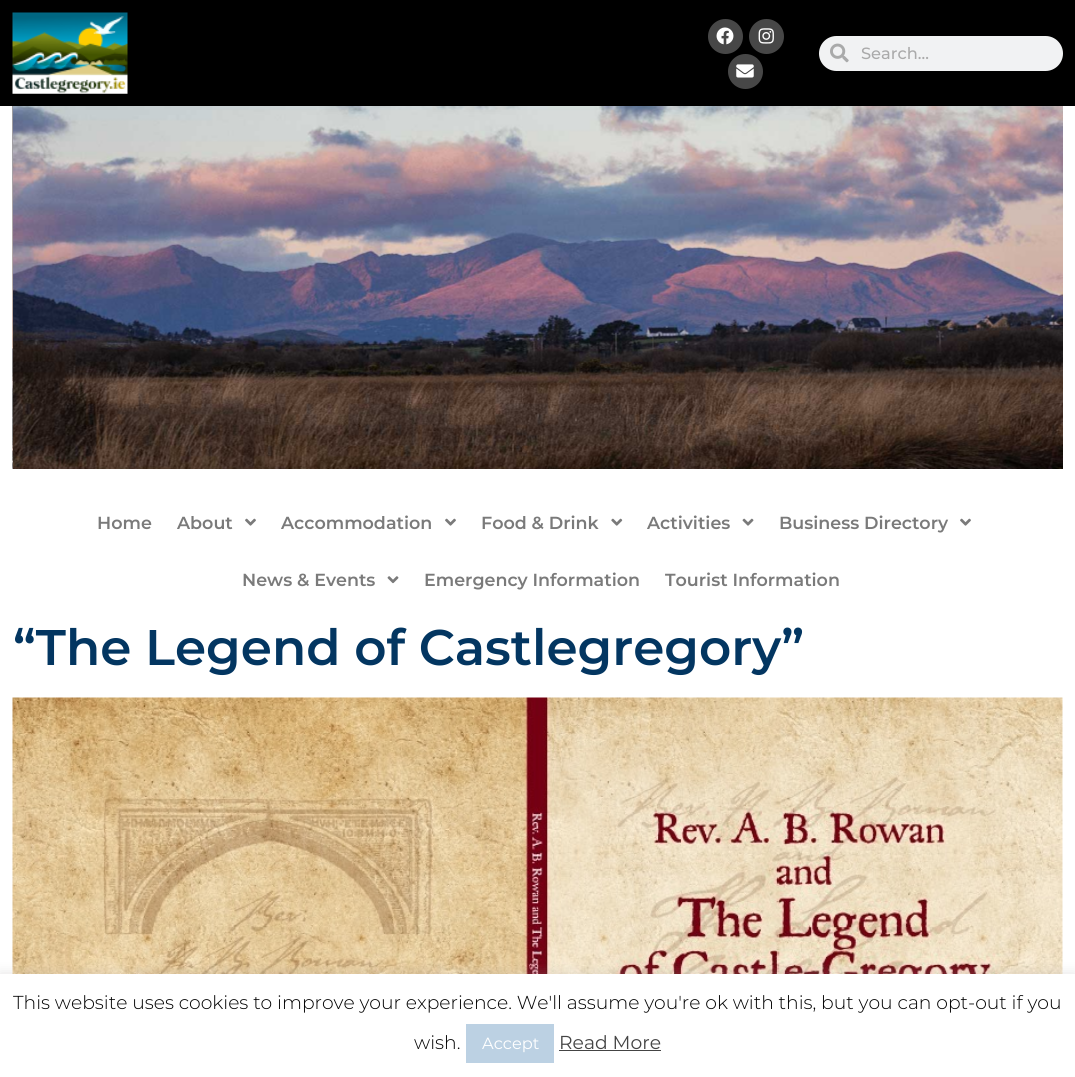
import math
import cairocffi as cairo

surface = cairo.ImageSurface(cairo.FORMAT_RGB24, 1075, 1077)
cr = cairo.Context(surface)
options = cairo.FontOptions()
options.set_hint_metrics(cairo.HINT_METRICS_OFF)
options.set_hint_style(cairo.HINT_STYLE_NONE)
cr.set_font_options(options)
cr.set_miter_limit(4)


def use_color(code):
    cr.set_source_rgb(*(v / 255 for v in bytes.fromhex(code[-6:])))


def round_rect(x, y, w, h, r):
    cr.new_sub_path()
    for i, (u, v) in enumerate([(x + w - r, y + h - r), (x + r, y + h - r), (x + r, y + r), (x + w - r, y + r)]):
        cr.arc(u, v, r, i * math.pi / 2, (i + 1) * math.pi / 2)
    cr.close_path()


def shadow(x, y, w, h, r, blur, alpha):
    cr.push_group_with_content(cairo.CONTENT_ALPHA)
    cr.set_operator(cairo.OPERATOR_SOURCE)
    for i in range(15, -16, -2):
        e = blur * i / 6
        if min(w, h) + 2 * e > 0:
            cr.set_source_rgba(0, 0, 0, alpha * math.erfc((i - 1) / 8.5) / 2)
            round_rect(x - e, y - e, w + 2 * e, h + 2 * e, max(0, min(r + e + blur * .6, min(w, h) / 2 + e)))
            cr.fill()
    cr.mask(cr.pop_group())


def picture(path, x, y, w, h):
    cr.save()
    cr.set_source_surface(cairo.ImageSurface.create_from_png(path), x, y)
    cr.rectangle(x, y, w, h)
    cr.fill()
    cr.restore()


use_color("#ffffff")
cr.paint()
use_color("#000000")
cr.rectangle(0, 0, 1075, 106)
cr.fill()
picture("img1.png", 12, 12, 116, 82)
use_color("#474747")
cr.arc(725.5, 36.5, 17.5, 0, 2 * math.pi)
cr.fill()
picture("img2.png", 716, 27, 18, 18)
cr.arc(766.5, 36.5, 17.5, 0, 2 * math.pi)
cr.fill()
picture("img3.png", 758, 28, 16, 16)
cr.arc(745.5, 71.5, 17.5, 0, 2 * math.pi)
cr.fill()
picture("img4.png", 736, 64, 18, 14)
use_color("#f1f2f3")
round_rect(819, 36, 244, 35, 17.5)
cr.fill()
picture("img5.png", 830, 43, 19, 20)
cr.select_font_face("Montserrat Medium")
cr.set_font_size(16.25)
use_color("#aaaaaa")
cr.move_to(861, 59)
cr.show_text("Search...")
picture("img6.png", 12, 106, 1, 363)
picture("img7.png", 13, 106, 1050, 363)
cr.select_font_face("Montserrat SemiBold")
cr.set_font_size(17.5)
use_color("#7a7a7a")
cr.move_to(97, 529)
cr.show_text("Home")
cr.move_to(177, 529)
cr.show_text("About")
picture("img8.png", 245, 518, 11, 8)
cr.move_to(281, 529)
cr.show_text("Accommodation")
picture("img8.png", 445, 518, 11, 8)
cr.move_to(481, 529)
cr.show_text("Food & Drink")
picture("img9.png", 611, 518, 12, 8)
cr.move_to(647, 529)
cr.show_text("Activities")
picture("img10.png", 742, 518, 12, 8)
cr.move_to(779, 529)
cr.show_text("Business Directory")
picture("img8.png", 960, 518, 11, 8)
cr.move_to(242, 586)
cr.show_text("News & Events")
picture("img11.png", 387, 576, 12, 8)
cr.move_to(424, 586)
cr.show_text("Emergency Information")
cr.move_to(665, 586)
cr.show_text("Tourist Information")
cr.set_font_size(50)
use_color("#033661")
cr.move_to(13, 665)
cr.show_text("“The Legend of Castlegregory”")
picture("img12.png", 12, 697, 1051, 277)
use_color("#acabab")
shadow(0, 973, 1075, 103, 0, 6, 0.3)
use_color("#ffffff")
cr.rectangle(0, 974, 1075, 103)
cr.fill()
cr.select_font_face("Montserrat Light")
cr.set_font_size(18.75)
use_color("#000000")
cr.move_to(13, 1009)
cr.show_text("This website uses cookies to improve your experience. We'll assume you're ok with this, but you can opt-out if you")
cr.move_to(414, 1049)
cr.show_text("wish.")
use_color("#bcd1e3")
cr.rectangle(466, 1024, 88, 39)
cr.fill()
cr.select_font_face("Montserrat")
cr.set_font_size(16.25)
use_color("#ffffff")
cr.move_to(482, 1049)
cr.show_text("Accept")
cr.set_font_size(18.75)
use_color("#444444")
cr.move_to(559, 1049)
cr.show_text("Read More")
cr.rectangle(559, 1050, 102, 1)
cr.fill()
surface.write_to_png("result.png")
